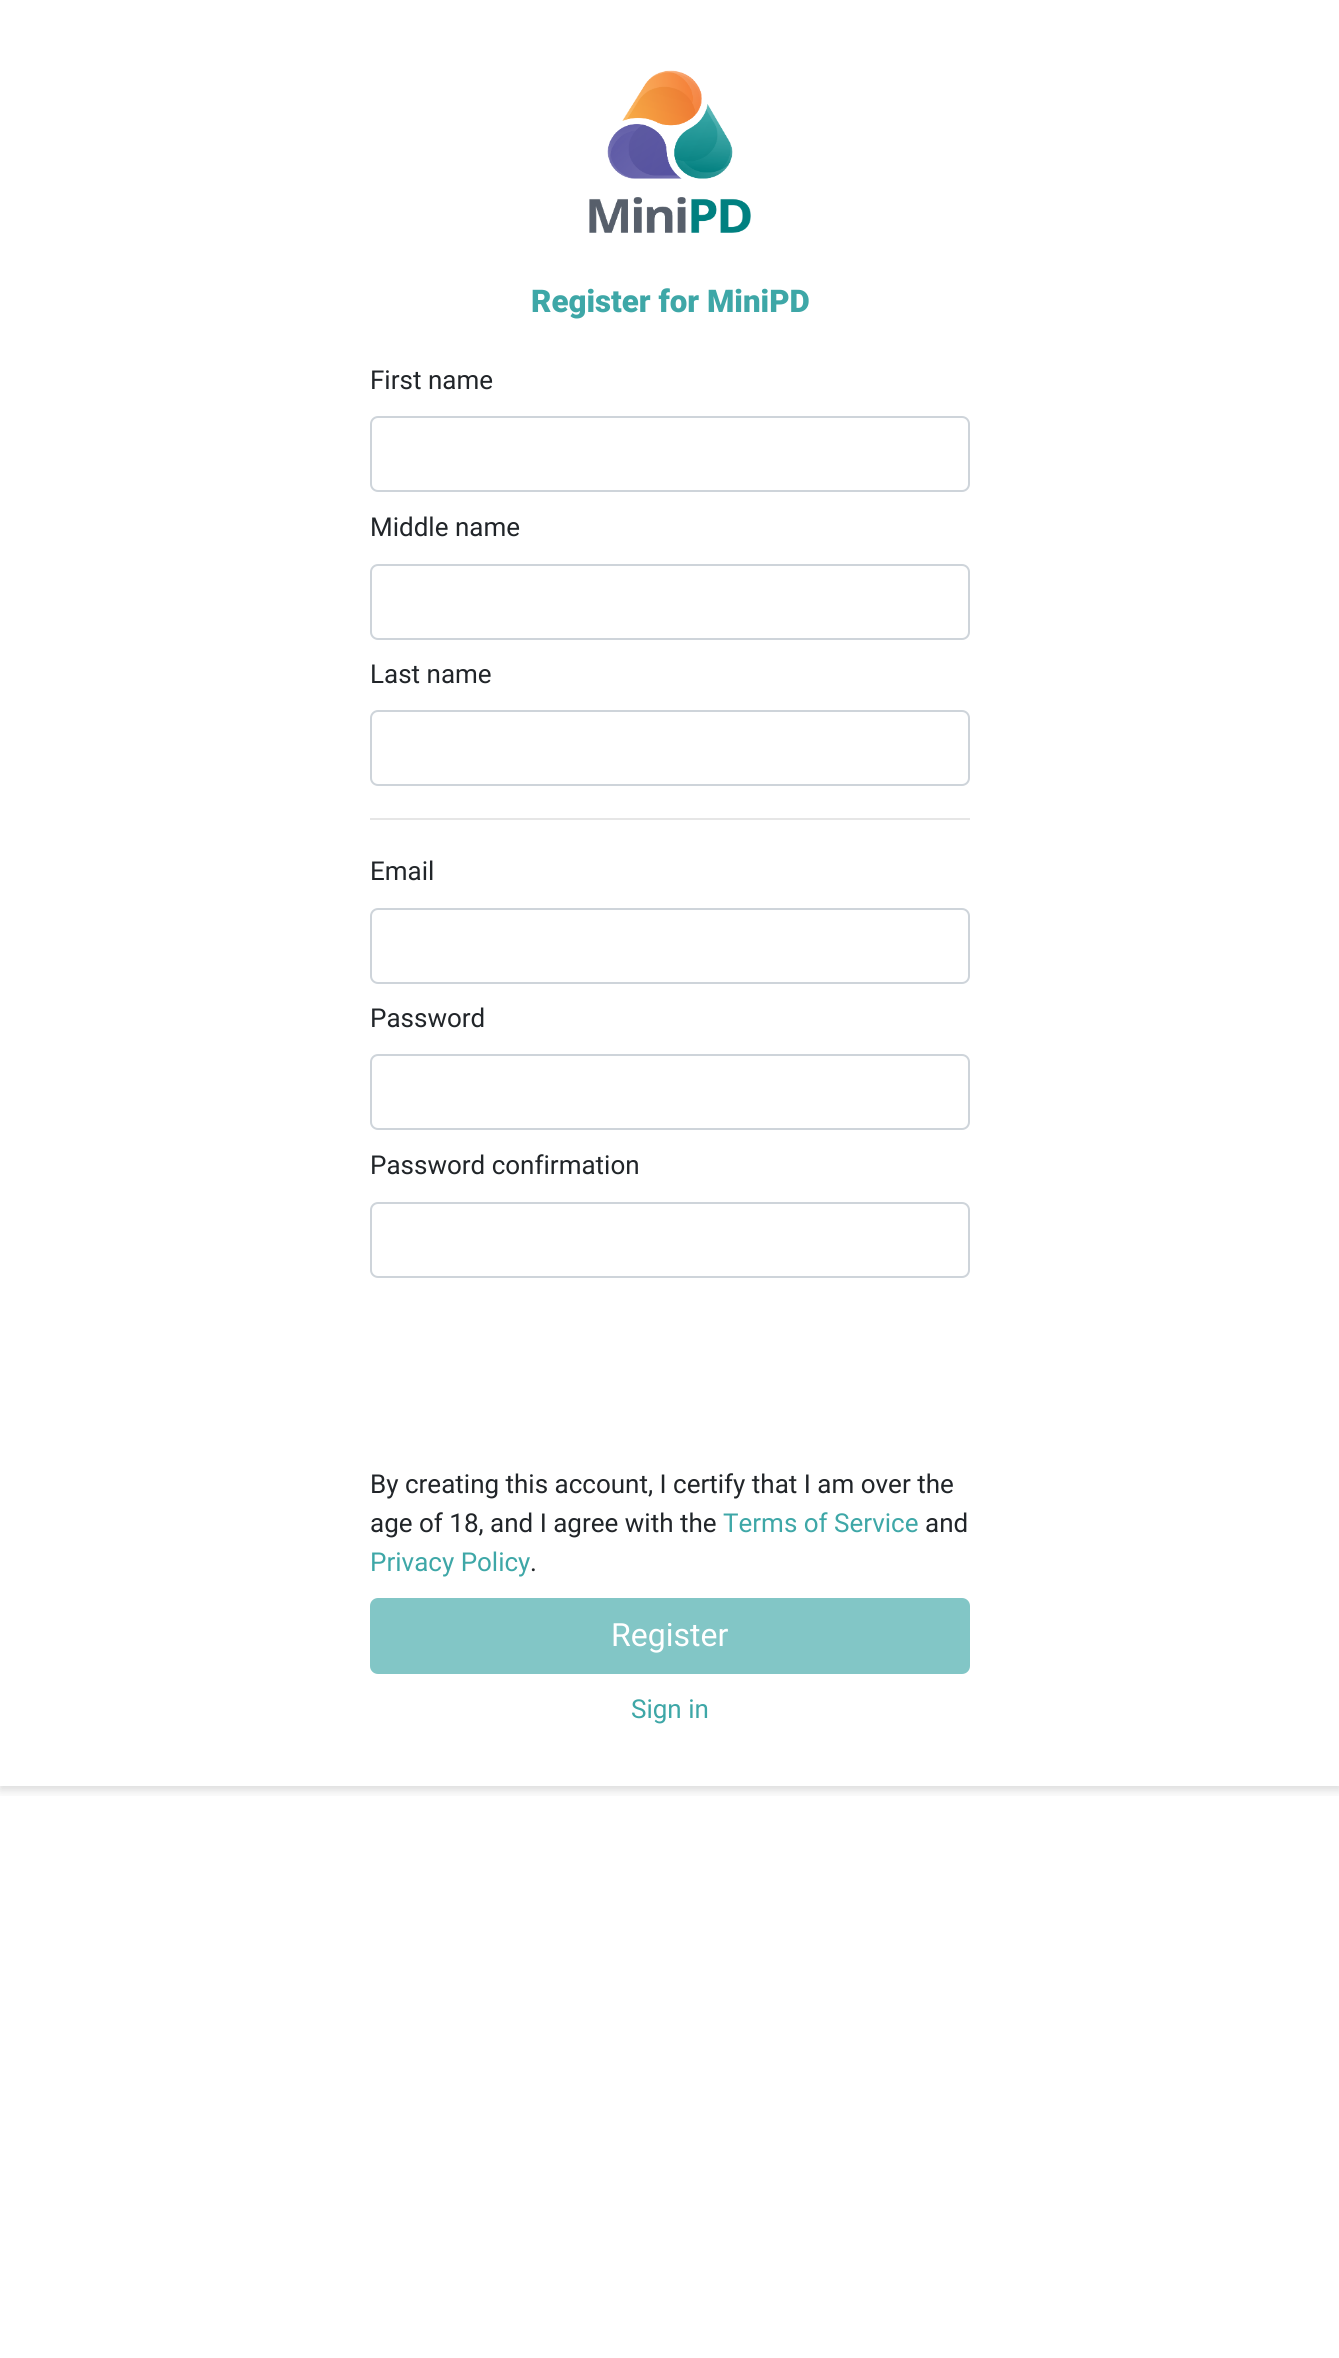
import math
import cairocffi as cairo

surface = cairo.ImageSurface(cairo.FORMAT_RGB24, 1339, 2358)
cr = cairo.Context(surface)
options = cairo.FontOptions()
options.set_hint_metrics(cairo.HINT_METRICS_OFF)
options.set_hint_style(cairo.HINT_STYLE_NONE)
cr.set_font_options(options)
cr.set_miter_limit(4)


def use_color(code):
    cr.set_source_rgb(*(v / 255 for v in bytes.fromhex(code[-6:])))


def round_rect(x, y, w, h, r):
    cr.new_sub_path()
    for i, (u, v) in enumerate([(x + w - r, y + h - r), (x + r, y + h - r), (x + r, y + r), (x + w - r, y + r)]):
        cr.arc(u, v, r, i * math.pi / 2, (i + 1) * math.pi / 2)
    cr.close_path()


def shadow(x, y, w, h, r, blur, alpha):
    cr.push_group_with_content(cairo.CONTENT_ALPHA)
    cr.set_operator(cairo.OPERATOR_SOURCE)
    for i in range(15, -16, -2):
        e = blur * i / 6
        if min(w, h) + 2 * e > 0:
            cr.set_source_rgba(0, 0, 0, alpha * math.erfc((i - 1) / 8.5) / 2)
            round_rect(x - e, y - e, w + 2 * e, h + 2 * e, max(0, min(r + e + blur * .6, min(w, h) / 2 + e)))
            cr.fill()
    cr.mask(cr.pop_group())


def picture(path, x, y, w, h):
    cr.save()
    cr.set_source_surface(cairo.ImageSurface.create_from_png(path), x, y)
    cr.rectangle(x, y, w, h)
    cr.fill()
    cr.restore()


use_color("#ffffff")
cr.paint()
cr.save()
cr.rectangle(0, 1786, 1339, 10)
cr.clip()
use_color("#000000")
shadow(0, 4, 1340, 1786, 0, 5, 0.15)
cr.restore()
picture("img1.png", 589, 70, 162, 163)
cr.select_font_face("Roboto Black")
cr.set_font_size(31.25)
use_color("#3ea7a7")
cr.move_to(531, 312)
cr.show_text("Register for MiniPD")
cr.select_font_face("Roboto")
cr.set_font_size(26)
use_color("#212529")
cr.move_to(370, 389)
cr.show_text("First name")
round_rect(371, 417, 598, 74, 7)
use_color("#ced4da")
cr.stroke()
use_color("#212529")
cr.move_to(370, 536)
cr.show_text("Middle name")
round_rect(371, 565, 598, 74, 7)
use_color("#ced4da")
cr.stroke()
use_color("#212529")
cr.move_to(370, 683)
cr.show_text("Last name")
round_rect(371, 711, 598, 74, 7)
use_color("#ced4da")
cr.stroke()
use_color("#e6e6e6")
cr.rectangle(370, 818, 600, 2)
cr.fill()
use_color("#212529")
cr.move_to(370, 880)
cr.show_text("Email")
round_rect(371, 909, 598, 74, 7)
use_color("#ced4da")
cr.stroke()
use_color("#212529")
cr.move_to(370, 1027)
cr.show_text("Password")
round_rect(371, 1055, 598, 74, 7)
use_color("#ced4da")
cr.stroke()
use_color("#212529")
cr.move_to(370, 1174)
cr.show_text("Password confirmation")
round_rect(371, 1203, 598, 74, 7)
use_color("#ced4da")
cr.stroke()
use_color("#212529")
cr.move_to(370, 1493)
cr.show_text("By creating this account, I certify that I am over the")
cr.move_to(370, 1532)
cr.show_text("age of 18, and I agree with the")
use_color("#3ea7a7")
cr.move_to(723, 1532)
cr.show_text("Terms of Service")
use_color("#212529")
cr.move_to(925, 1532)
cr.show_text("and")
use_color("#3ea7a7")
cr.move_to(370, 1571)
cr.show_text("Privacy Policy")
use_color("#212529")
cr.move_to(530, 1571)
cr.show_text(".")
use_color("#82c6c6")
round_rect(371, 1599, 598, 74, 7)
cr.fill_preserve()
cr.stroke()
cr.set_font_size(32)
use_color("#ffffff")
cr.move_to(611, 1646)
cr.show_text("Register")
cr.set_font_size(26)
use_color("#3ea7a7")
cr.move_to(631, 1718)
cr.show_text("Sign in")
surface.write_to_png("result.png")
